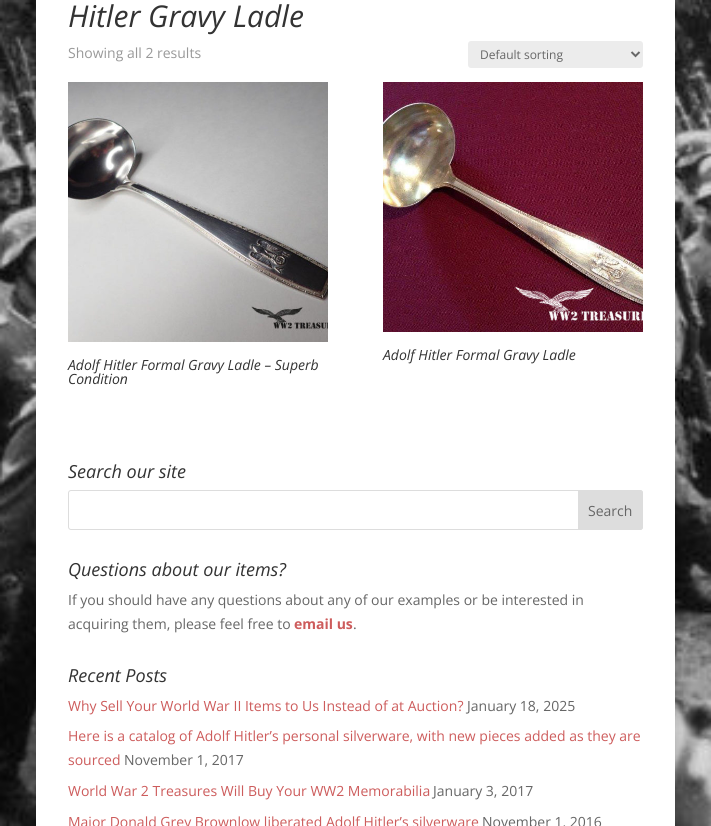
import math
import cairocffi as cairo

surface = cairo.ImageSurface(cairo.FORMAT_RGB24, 711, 826)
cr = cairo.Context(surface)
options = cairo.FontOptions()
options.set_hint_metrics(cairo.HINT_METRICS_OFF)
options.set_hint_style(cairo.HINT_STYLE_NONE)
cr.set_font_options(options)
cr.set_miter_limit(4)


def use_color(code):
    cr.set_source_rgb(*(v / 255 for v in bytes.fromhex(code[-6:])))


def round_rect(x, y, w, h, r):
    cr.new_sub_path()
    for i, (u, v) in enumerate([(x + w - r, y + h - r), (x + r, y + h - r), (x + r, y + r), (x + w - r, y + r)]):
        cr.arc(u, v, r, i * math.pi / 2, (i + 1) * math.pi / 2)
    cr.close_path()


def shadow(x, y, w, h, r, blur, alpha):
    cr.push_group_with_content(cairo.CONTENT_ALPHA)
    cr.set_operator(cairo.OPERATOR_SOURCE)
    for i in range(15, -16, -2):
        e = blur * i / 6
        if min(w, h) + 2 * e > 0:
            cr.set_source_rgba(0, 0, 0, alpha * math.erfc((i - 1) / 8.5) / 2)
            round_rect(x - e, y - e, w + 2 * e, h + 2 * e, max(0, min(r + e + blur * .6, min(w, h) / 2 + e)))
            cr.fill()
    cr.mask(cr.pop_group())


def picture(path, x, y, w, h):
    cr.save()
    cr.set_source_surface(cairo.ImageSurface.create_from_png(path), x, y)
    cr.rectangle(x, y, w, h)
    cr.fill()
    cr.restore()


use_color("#ffffff")
cr.paint()
picture("img1.png", 0, 0, 711, 826)
use_color("#000000")
shadow(36, -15, 639, 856, 0, 5, 0.2)
use_color("#ffffff")
cr.rectangle(36, 0, 639, 826)
cr.fill()
cr.select_font_face("Open Sans", cairo.FONT_SLANT_ITALIC)
cr.set_font_size(30)
use_color("#333333")
cr.move_to(68, 27)
cr.show_text("Hitler Gravy Ladle")
cr.select_font_face("Open Sans")
cr.set_font_size(14)
use_color("#999999")
cr.move_to(68, 58)
cr.show_text("Showing all 2 results")
use_color("#ececec")
round_rect(468, 41, 175, 27, 3)
cr.fill()
cr.new_path()
cr.move_to(631.5, 52)
cr.line_to(635.5, 56)
cr.line_to(639.5, 52)
use_color("#666666")
cr.stroke()
cr.set_font_size(12)
cr.move_to(480, 59)
cr.show_text("Default sorting")
picture("img2.png", 383, 82, 260, 250)
cr.select_font_face("Open Sans", cairo.FONT_SLANT_ITALIC)
cr.set_font_size(14)
use_color("#333333")
cr.move_to(383, 360)
cr.show_text("Adolf Hitler Formal Gravy Ladle")
picture("img3.png", 68, 82, 260, 260)
cr.move_to(68, 370)
cr.show_text("Adolf Hitler Formal Gravy Ladle – Superb")
cr.move_to(68, 384)
cr.show_text("Condition")
cr.set_font_size(18)
cr.move_to(68, 478)
cr.show_text("Search our site")
round_rect(68.5, 490.5, 574, 39, 2.5)
use_color("#dddddd")
cr.set_line_width(1)
cr.stroke()
cr.new_path()
cr.move_to(578.5, 490.5)
cr.line_to(640, 490.5)
cr.curve_to(641.5, 490.5, 642.5, 491.5, 642.5, 493)
cr.line_to(642.5, 527)
cr.curve_to(642.5, 528.5, 641.5, 529.5, 640, 529.5)
cr.line_to(578.5, 529.5)
cr.close_path()
cr.fill_preserve()
cr.stroke()
cr.select_font_face("Open Sans")
cr.set_font_size(14)
use_color("#666666")
cr.move_to(588, 516)
cr.show_text("Search")
cr.select_font_face("Open Sans", cairo.FONT_SLANT_ITALIC)
cr.set_font_size(18)
use_color("#333333")
cr.move_to(68, 576)
cr.show_text("Questions about our items?")
cr.select_font_face("Open Sans")
cr.set_font_size(14)
use_color("#666666")
cr.move_to(68, 605)
cr.show_text("If you should have any questions about any of our examples or be interested in")
cr.move_to(68, 629)
cr.show_text("acquiring them, please feel free to")
cr.select_font_face("Open Sans", cairo.FONT_SLANT_NORMAL, cairo.FONT_WEIGHT_BOLD)
use_color("#cd5c5c")
cr.move_to(294, 629)
cr.show_text("email us")
cr.select_font_face("Open Sans")
use_color("#666666")
cr.move_to(353, 629)
cr.show_text(".")
cr.select_font_face("Open Sans", cairo.FONT_SLANT_ITALIC)
cr.set_font_size(18)
use_color("#333333")
cr.move_to(68, 682)
cr.show_text("Recent Posts")
cr.select_font_face("Open Sans")
cr.set_font_size(14)
use_color("#cd5c5c")
cr.move_to(68, 711)
cr.show_text("Why Sell Your World War II Items to Us Instead of at Auction?")
use_color("#666666")
cr.move_to(467, 711)
cr.show_text("January 18, 2025")
use_color("#cd5c5c")
cr.move_to(68, 741)
cr.show_text("Here is a catalog of Adolf Hitler’s personal silverware, with new pieces added as they are")
cr.move_to(68, 765)
cr.show_text("sourced")
use_color("#666666")
cr.move_to(124, 765)
cr.show_text("November 1, 2017")
use_color("#cd5c5c")
cr.move_to(68, 796)
cr.show_text("World War 2 Treasures Will Buy Your WW2 Memorabilia")
use_color("#666666")
cr.move_to(433, 796)
cr.show_text("January 3, 2017")
use_color("#cd5c5c")
cr.move_to(68, 827)
cr.show_text("Major Donald Grey Brownlow liberated Adolf Hitler’s silverware")
use_color("#666666")
cr.move_to(482, 827)
cr.show_text("November 1, 2016")
surface.write_to_png("result.png")
